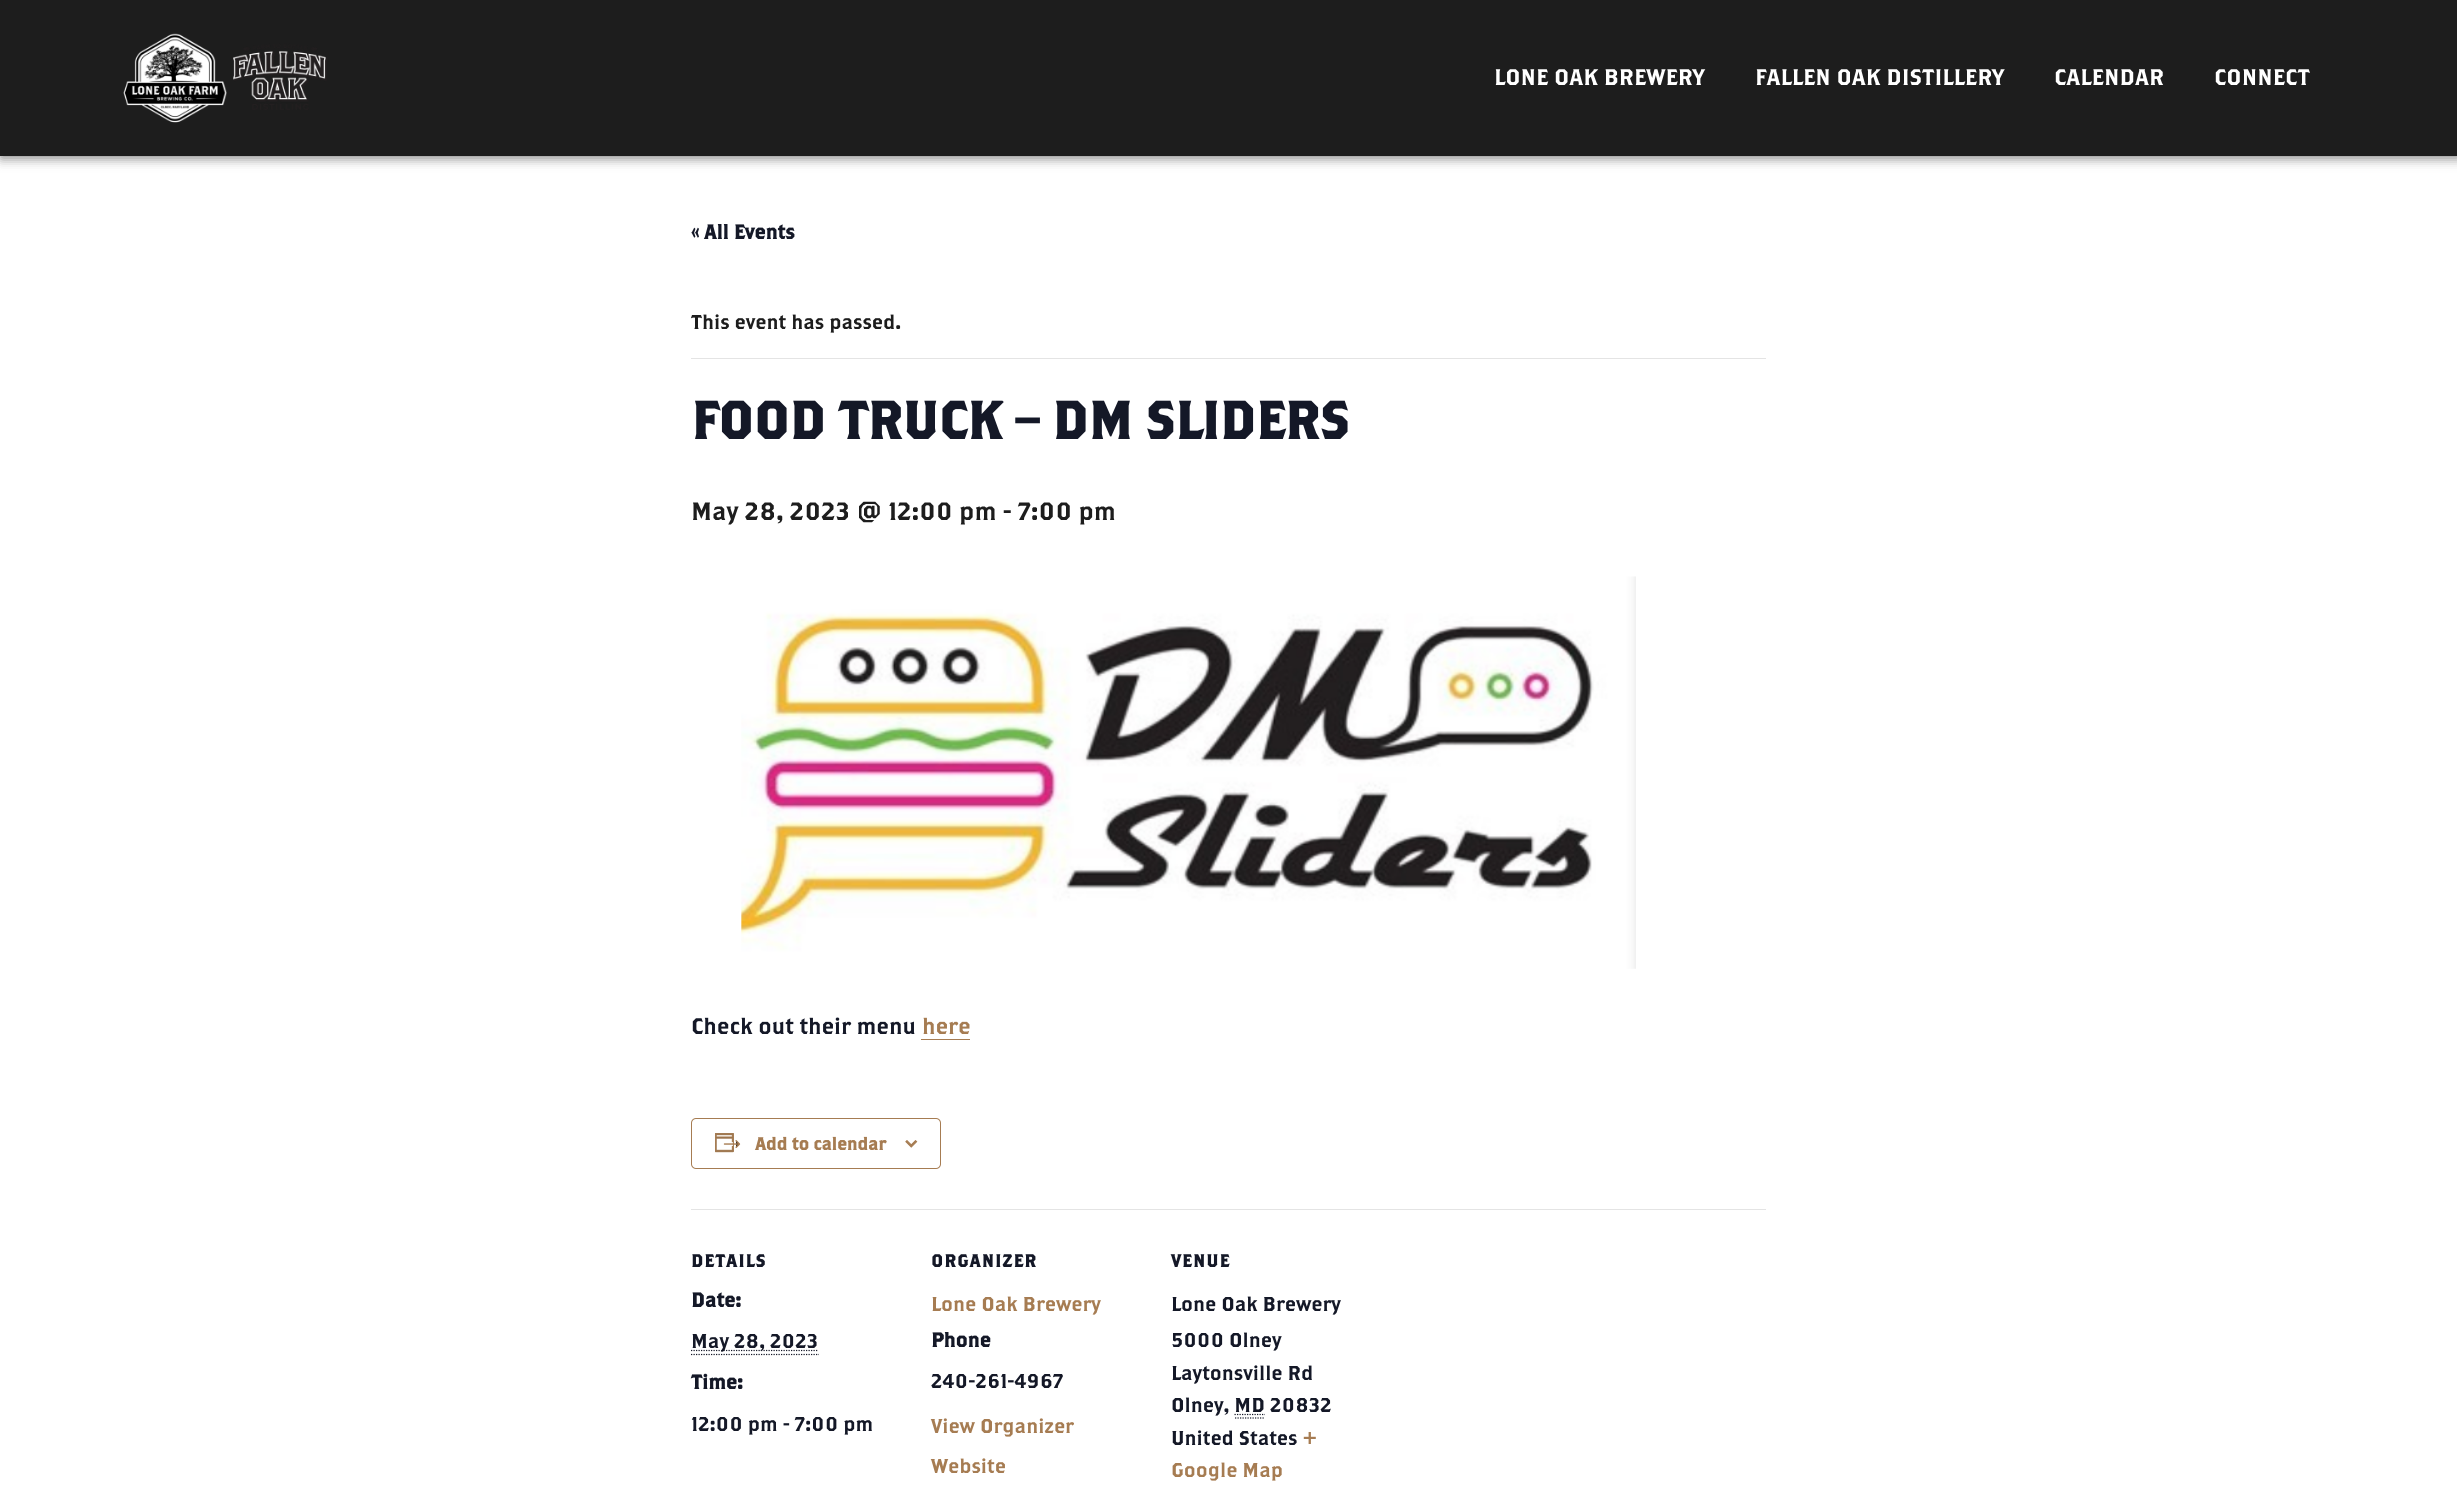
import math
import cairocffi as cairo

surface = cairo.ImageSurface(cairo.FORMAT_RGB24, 2457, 1501)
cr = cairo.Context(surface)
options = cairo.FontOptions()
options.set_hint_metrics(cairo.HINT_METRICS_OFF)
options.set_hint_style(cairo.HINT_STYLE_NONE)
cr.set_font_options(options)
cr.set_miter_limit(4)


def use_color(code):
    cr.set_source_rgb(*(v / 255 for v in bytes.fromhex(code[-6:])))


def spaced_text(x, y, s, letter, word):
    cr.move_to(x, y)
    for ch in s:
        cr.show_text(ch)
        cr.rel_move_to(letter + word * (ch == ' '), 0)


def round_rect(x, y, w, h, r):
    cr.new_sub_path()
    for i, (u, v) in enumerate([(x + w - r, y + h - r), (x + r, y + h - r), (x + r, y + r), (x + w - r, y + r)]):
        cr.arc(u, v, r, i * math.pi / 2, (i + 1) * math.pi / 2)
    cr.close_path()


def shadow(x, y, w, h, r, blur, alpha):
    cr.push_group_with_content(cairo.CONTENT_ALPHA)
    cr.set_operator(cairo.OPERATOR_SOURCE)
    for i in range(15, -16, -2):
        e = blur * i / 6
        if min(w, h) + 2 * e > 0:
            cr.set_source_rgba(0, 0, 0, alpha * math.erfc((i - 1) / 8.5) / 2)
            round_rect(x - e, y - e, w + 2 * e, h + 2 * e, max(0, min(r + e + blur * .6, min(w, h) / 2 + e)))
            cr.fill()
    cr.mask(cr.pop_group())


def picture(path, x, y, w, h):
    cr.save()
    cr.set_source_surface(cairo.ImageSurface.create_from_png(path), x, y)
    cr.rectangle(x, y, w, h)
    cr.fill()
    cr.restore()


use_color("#ffffff")
cr.paint()
use_color("#000000")
shadow(1, 1, 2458, 157, 0, 6, 0.5)
use_color("#1d1d1d")
cr.rectangle(0, 0, 2457, 156)
cr.fill()
picture("img1.png", 123, 33, 204, 90)
cr.select_font_face("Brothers")
cr.set_font_size(22.5)
use_color("#ffffff")
cr.move_to(1494, 85)
cr.show_text("LONE OAK BREWERY")
cr.move_to(1755, 85)
cr.show_text("FALLEN OAK DISTILLERY")
cr.move_to(2054, 85)
cr.show_text("CALENDAR")
cr.move_to(2214, 85)
cr.show_text("CONNECT")
cr.select_font_face("Brothers", cairo.FONT_SLANT_NORMAL, cairo.FONT_WEIGHT_BOLD)
cr.set_font_size(20)
use_color("#141827")
cr.move_to(691, 239)
cr.show_text("« All Events")
use_color("#e4e4e4")
cr.rectangle(691, 358, 1075, 1)
cr.fill()
cr.select_font_face("Brothers")
use_color("#1d1d1d")
cr.move_to(691, 329)
cr.show_text("This event has passed.")
cr.select_font_face("Brothers", cairo.FONT_SLANT_NORMAL, cairo.FONT_WEIGHT_BOLD)
cr.set_font_size(52.5)
use_color("#141827")
cr.move_to(691, 439)
cr.show_text("FOOD TRUCK – DM SLIDERS")
cr.select_font_face("Brothers")
cr.set_font_size(25)
use_color("#1d1d1d")
cr.move_to(691, 520)
cr.show_text("May 28, 2023 @ 12:00 pm - 7:00 pm")
picture("img2.png", 741, 576, 895, 393)
cr.set_font_size(22.5)
use_color("#141827")
cr.move_to(691, 1034)
cr.show_text("Check out their menu")
use_color("#a67c52")
cr.move_to(922, 1034)
cr.show_text("here")
cr.rectangle(921, 1039, 49, 1)
cr.fill()
round_rect(691.5, 1118.5, 249, 50, 4.5)
cr.set_line_width(1)
cr.stroke()
picture("img3.png", 715, 1133, 26, 20)
cr.select_font_face("Brothers", cairo.FONT_SLANT_NORMAL, cairo.FONT_WEIGHT_BOLD)
cr.set_font_size(17.5)
cr.move_to(755, 1150)
cr.show_text("Add to calendar")
picture("img4.png", 905, 1140, 13, 8)
use_color("#e4e4e4")
cr.rectangle(691, 1209, 1075, 1)
cr.fill()
use_color("#141827")
spaced_text(691, 1267, "DETAILS", 1.25, 0)
cr.set_font_size(20)
cr.move_to(691, 1307)
cr.show_text("Date:")
cr.new_path()
cr.move_to(691, 1350.5)
cr.line_to(818.5, 1350.5)
cr.set_line_width(1.2)
cr.set_dash([1.25, 1.25])
cr.stroke()
cr.select_font_face("Brothers")
cr.move_to(691, 1348)
cr.show_text("May 28, 2023")
cr.new_path()
cr.move_to(691, 1354.5)
cr.line_to(819, 1354.5)
cr.stroke()
cr.select_font_face("Brothers", cairo.FONT_SLANT_NORMAL, cairo.FONT_WEIGHT_BOLD)
cr.move_to(691, 1389)
cr.show_text("Time:")
cr.select_font_face("Brothers")
cr.move_to(691, 1431)
cr.show_text("12:00 pm - 7:00 pm")
cr.select_font_face("Brothers", cairo.FONT_SLANT_NORMAL, cairo.FONT_WEIGHT_BOLD)
cr.set_font_size(17.5)
spaced_text(931, 1267, "ORGANIZER", 1.25, 0)
cr.select_font_face("Brothers")
cr.set_font_size(20)
use_color("#a67c52")
cr.move_to(931, 1311)
cr.show_text("Lone Oak Brewery")
cr.select_font_face("Brothers", cairo.FONT_SLANT_NORMAL, cairo.FONT_WEIGHT_BOLD)
use_color("#141827")
cr.move_to(931, 1347)
cr.show_text("Phone")
cr.select_font_face("Brothers")
cr.move_to(931, 1388)
cr.show_text("240-261-4967")
use_color("#a67c52")
cr.move_to(931, 1433)
cr.show_text("View Organizer")
cr.move_to(931, 1473)
cr.show_text("Website")
cr.select_font_face("Brothers", cairo.FONT_SLANT_NORMAL, cairo.FONT_WEIGHT_BOLD)
cr.set_font_size(17.5)
use_color("#141827")
spaced_text(1171, 1267, "VENUE", 1.25, 0)
cr.select_font_face("Brothers")
cr.set_font_size(20)
cr.move_to(1171, 1311)
cr.show_text("Lone Oak Brewery")
cr.move_to(1171, 1347)
cr.show_text("5000 Olney")
cr.move_to(1171, 1380)
cr.show_text("Laytonsville Rd")
cr.move_to(1171, 1412)
cr.show_text("Olney, MD 20832")
cr.new_path()
cr.move_to(1235, 1418)
cr.line_to(1265, 1418)
cr.move_to(1234.5, 1414.5)
cr.line_to(1265, 1414.5)
cr.stroke()
cr.move_to(1171, 1445)
cr.show_text("United States")
use_color("#a67c52")
cr.move_to(1303, 1445)
cr.show_text("+")
cr.move_to(1171, 1477)
cr.show_text("Google Map")
surface.write_to_png("result.png")
